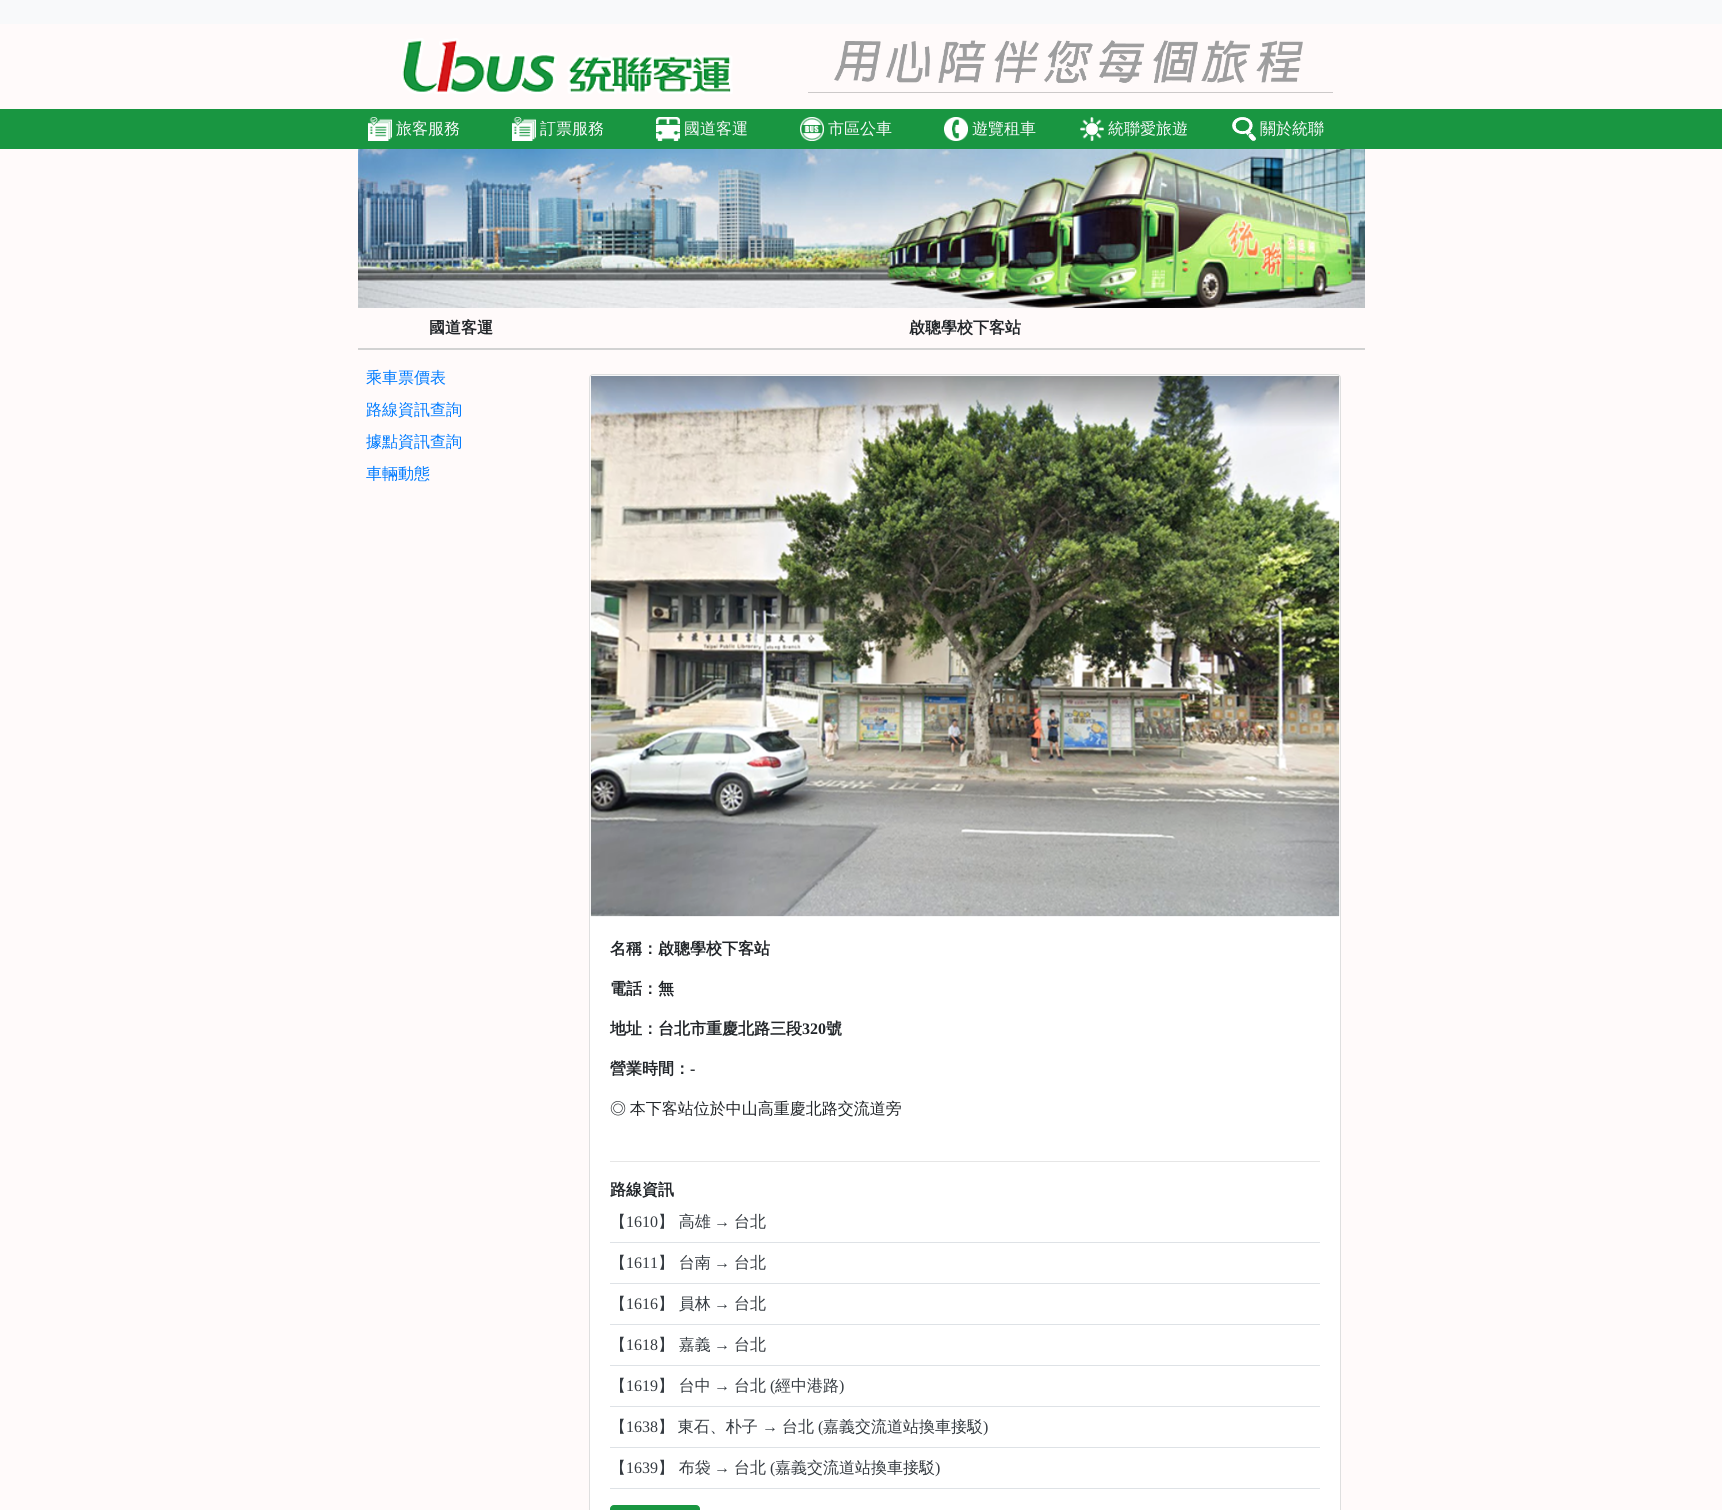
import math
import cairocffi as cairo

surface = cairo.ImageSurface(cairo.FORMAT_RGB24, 1722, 1510)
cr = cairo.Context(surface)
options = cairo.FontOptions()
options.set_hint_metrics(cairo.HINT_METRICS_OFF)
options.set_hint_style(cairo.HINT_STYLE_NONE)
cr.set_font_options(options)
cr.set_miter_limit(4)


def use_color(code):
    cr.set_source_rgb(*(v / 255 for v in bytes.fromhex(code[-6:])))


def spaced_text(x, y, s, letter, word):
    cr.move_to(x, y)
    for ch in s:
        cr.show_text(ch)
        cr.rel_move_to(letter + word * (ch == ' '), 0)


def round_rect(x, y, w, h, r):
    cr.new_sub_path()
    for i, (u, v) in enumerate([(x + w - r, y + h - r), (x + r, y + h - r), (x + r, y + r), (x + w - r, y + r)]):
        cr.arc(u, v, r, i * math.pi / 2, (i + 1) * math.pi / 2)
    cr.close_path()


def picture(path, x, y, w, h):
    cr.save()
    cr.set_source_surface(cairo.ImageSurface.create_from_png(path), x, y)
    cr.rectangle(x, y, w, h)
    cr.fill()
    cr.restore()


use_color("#fffafa")
cr.paint()
use_color("#f8f9fa")
cr.rectangle(0, 0, 1722, 24)
cr.fill()
picture("img1.png", 401, 38, 332, 56)
picture("img2.png", 808, 40, 525, 53)
use_color("#199641")
cr.rectangle(0, 109, 1722, 40)
cr.fill()
picture("img3.png", 368, 117, 24, 24)
cr.select_font_face("WenQuanYi Zen Hei Medium")
cr.set_font_size(16)
use_color("#f8f9fa")
cr.move_to(396, 134)
cr.show_text("旅客服務")
picture("img3.png", 512, 117, 24, 24)
cr.move_to(540, 134)
cr.show_text("訂票服務")
picture("img4.png", 656, 117, 24, 24)
cr.move_to(684, 134)
cr.show_text("國道客運")
picture("img5.png", 800, 117, 24, 24)
cr.move_to(828, 134)
cr.show_text("市區公車")
picture("img6.png", 944, 117, 24, 24)
cr.move_to(972, 134)
cr.show_text("遊覽租車")
picture("img7.png", 1080, 117, 24, 24)
cr.move_to(1108, 134)
cr.show_text("統聯愛旅遊")
picture("img8.png", 1232, 117, 24, 24)
cr.move_to(1260, 134)
cr.show_text("關於統聯")
picture("img9.png", 358, 149, 1007, 159)
use_color("#d2d2d2")
cr.rectangle(358, 348, 1007, 2)
cr.fill()
cr.select_font_face("WenQuanYi Zen Hei", cairo.FONT_SLANT_NORMAL, cairo.FONT_WEIGHT_BOLD)
use_color("#212529")
cr.move_to(429, 333)
cr.show_text("國道客運")
cr.select_font_face("WenQuanYi Zen Hei Medium")
use_color("#007bff")
cr.move_to(366, 383)
cr.show_text("乘車票價表")
cr.move_to(366, 415)
cr.show_text("路線資訊查詢")
cr.move_to(366, 447)
cr.show_text("據點資訊查詢")
cr.move_to(366, 479)
cr.show_text("車輛動態")
cr.select_font_face("WenQuanYi Zen Hei", cairo.FONT_SLANT_NORMAL, cairo.FONT_WEIGHT_BOLD)
use_color("#212529")
cr.move_to(909, 333)
cr.show_text("啟聰學校下客站")
use_color("#ffffff")
round_rect(589.5, 374.5, 751, 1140, 3.5)
cr.fill_preserve()
use_color("#dfdfdf")
cr.set_line_width(1)
cr.stroke()
picture("img10.png", 590, 375, 750, 542)
use_color("#212529")
cr.move_to(610, 954)
cr.show_text("名稱：啟聰學校下客站")
cr.move_to(610, 994)
cr.show_text("電話：無")
cr.move_to(610, 1034)
cr.show_text("地址：台北市重慶北路三段")
cr.select_font_face("Liberation Serif", cairo.FONT_SLANT_NORMAL, cairo.FONT_WEIGHT_BOLD)
cr.move_to(802, 1034)
cr.show_text("320")
cr.select_font_face("WenQuanYi Zen Hei", cairo.FONT_SLANT_NORMAL, cairo.FONT_WEIGHT_BOLD)
cr.move_to(826, 1034)
cr.show_text("號")
cr.move_to(610, 1074)
cr.show_text("營業時間：")
cr.select_font_face("Liberation Serif", cairo.FONT_SLANT_NORMAL, cairo.FONT_WEIGHT_BOLD)
cr.move_to(690, 1074)
cr.show_text("-")
cr.select_font_face("WenQuanYi Zen Hei Medium")
spaced_text(610, 1114, "◎ 本下客站位於中山高重慶北路交流道旁", 0, -1)
use_color("#e6e6e6")
cr.rectangle(610, 1161, 710, 1)
cr.fill()
cr.select_font_face("WenQuanYi Zen Hei", cairo.FONT_SLANT_NORMAL, cairo.FONT_WEIGHT_BOLD)
use_color("#212529")
cr.move_to(610, 1195)
cr.show_text("路線資訊")
use_color("#dee2e6")
cr.rectangle(610, 1242, 710, 1)
cr.fill()
cr.select_font_face("WenQuanYi Zen Hei Medium")
use_color("#343a40")
cr.move_to(610, 1227)
cr.show_text("【")
cr.select_font_face("Liberation Serif")
cr.move_to(626, 1227)
cr.show_text("1610")
cr.select_font_face("WenQuanYi Zen Hei Medium")
cr.move_to(658, 1227)
cr.show_text("】 高雄")
cr.select_font_face("Liberation Serif")
cr.move_to(714, 1227)
cr.show_text("→")
cr.select_font_face("WenQuanYi Zen Hei Medium")
cr.move_to(734, 1227)
cr.show_text("台北")
use_color("#dee2e6")
cr.rectangle(610, 1283, 710, 1)
cr.fill()
use_color("#343a40")
cr.move_to(610, 1268)
cr.show_text("【")
cr.select_font_face("Liberation Serif")
cr.move_to(626, 1268)
cr.show_text("1611")
cr.select_font_face("WenQuanYi Zen Hei Medium")
cr.move_to(658, 1268)
cr.show_text("】 台南")
cr.select_font_face("Liberation Serif")
cr.move_to(714, 1268)
cr.show_text("→")
cr.select_font_face("WenQuanYi Zen Hei Medium")
cr.move_to(734, 1268)
cr.show_text("台北")
use_color("#dee2e6")
cr.rectangle(610, 1324, 710, 1)
cr.fill()
use_color("#343a40")
cr.move_to(610, 1309)
cr.show_text("【")
cr.select_font_face("Liberation Serif")
cr.move_to(626, 1309)
cr.show_text("1616")
cr.select_font_face("WenQuanYi Zen Hei Medium")
cr.move_to(658, 1309)
cr.show_text("】 員林")
cr.select_font_face("Liberation Serif")
cr.move_to(714, 1309)
cr.show_text("→")
cr.select_font_face("WenQuanYi Zen Hei Medium")
cr.move_to(734, 1309)
cr.show_text("台北")
use_color("#dee2e6")
cr.rectangle(610, 1365, 710, 1)
cr.fill()
use_color("#343a40")
cr.move_to(610, 1350)
cr.show_text("【")
cr.select_font_face("Liberation Serif")
cr.move_to(626, 1350)
cr.show_text("1618")
cr.select_font_face("WenQuanYi Zen Hei Medium")
cr.move_to(658, 1350)
cr.show_text("】 嘉義")
cr.select_font_face("Liberation Serif")
cr.move_to(714, 1350)
cr.show_text("→")
cr.select_font_face("WenQuanYi Zen Hei Medium")
cr.move_to(734, 1350)
cr.show_text("台北")
use_color("#dee2e6")
cr.rectangle(610, 1406, 710, 1)
cr.fill()
use_color("#343a40")
cr.move_to(610, 1391)
cr.show_text("【")
cr.select_font_face("Liberation Serif")
cr.move_to(626, 1391)
cr.show_text("1619")
cr.select_font_face("WenQuanYi Zen Hei Medium")
cr.move_to(658, 1391)
cr.show_text("】 台中")
cr.select_font_face("Liberation Serif")
cr.move_to(714, 1391)
cr.show_text("→")
cr.select_font_face("WenQuanYi Zen Hei Medium")
cr.move_to(734, 1391)
cr.show_text("台北")
cr.select_font_face("Liberation Serif")
cr.move_to(770, 1391)
cr.show_text("(")
cr.select_font_face("WenQuanYi Zen Hei Medium")
cr.move_to(775, 1391)
cr.show_text("經中港路")
cr.select_font_face("Liberation Serif")
cr.move_to(839, 1391)
cr.show_text(")")
use_color("#dee2e6")
cr.rectangle(610, 1447, 710, 1)
cr.fill()
cr.select_font_face("WenQuanYi Zen Hei Medium")
use_color("#343a40")
cr.move_to(610, 1432)
cr.show_text("【")
cr.select_font_face("Liberation Serif")
cr.move_to(626, 1432)
cr.show_text("1638")
cr.select_font_face("WenQuanYi Zen Hei Medium")
spaced_text(658, 1432, "】 東石、朴子", 0, -1)
cr.select_font_face("Liberation Serif")
cr.move_to(762, 1432)
cr.show_text("→")
cr.select_font_face("WenQuanYi Zen Hei Medium")
cr.move_to(782, 1432)
cr.show_text("台北")
cr.select_font_face("Liberation Serif")
cr.move_to(818, 1432)
cr.show_text("(")
cr.select_font_face("WenQuanYi Zen Hei Medium")
cr.move_to(823, 1432)
cr.show_text("嘉義交流道站換車接駁")
cr.select_font_face("Liberation Serif")
cr.move_to(983, 1432)
cr.show_text(")")
use_color("#dee2e6")
cr.rectangle(610, 1488, 710, 1)
cr.fill()
cr.select_font_face("WenQuanYi Zen Hei Medium")
use_color("#343a40")
cr.move_to(610, 1473)
cr.show_text("【")
cr.select_font_face("Liberation Serif")
cr.move_to(626, 1473)
cr.show_text("1639")
cr.select_font_face("WenQuanYi Zen Hei Medium")
cr.move_to(658, 1473)
cr.show_text("】 布袋")
cr.select_font_face("Liberation Serif")
cr.move_to(714, 1473)
cr.show_text("→")
cr.select_font_face("WenQuanYi Zen Hei Medium")
cr.move_to(734, 1473)
cr.show_text("台北")
cr.select_font_face("Liberation Serif")
cr.move_to(770, 1473)
cr.show_text("(")
cr.select_font_face("WenQuanYi Zen Hei Medium")
cr.move_to(775, 1473)
cr.show_text("嘉義交流道站換車接駁")
cr.select_font_face("Liberation Serif")
cr.move_to(935, 1473)
cr.show_text(")")
use_color("#199641")
round_rect(610.5, 1505.5, 89, 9, 3.5)
cr.fill_preserve()
cr.stroke()
surface.write_to_png("result.png")
